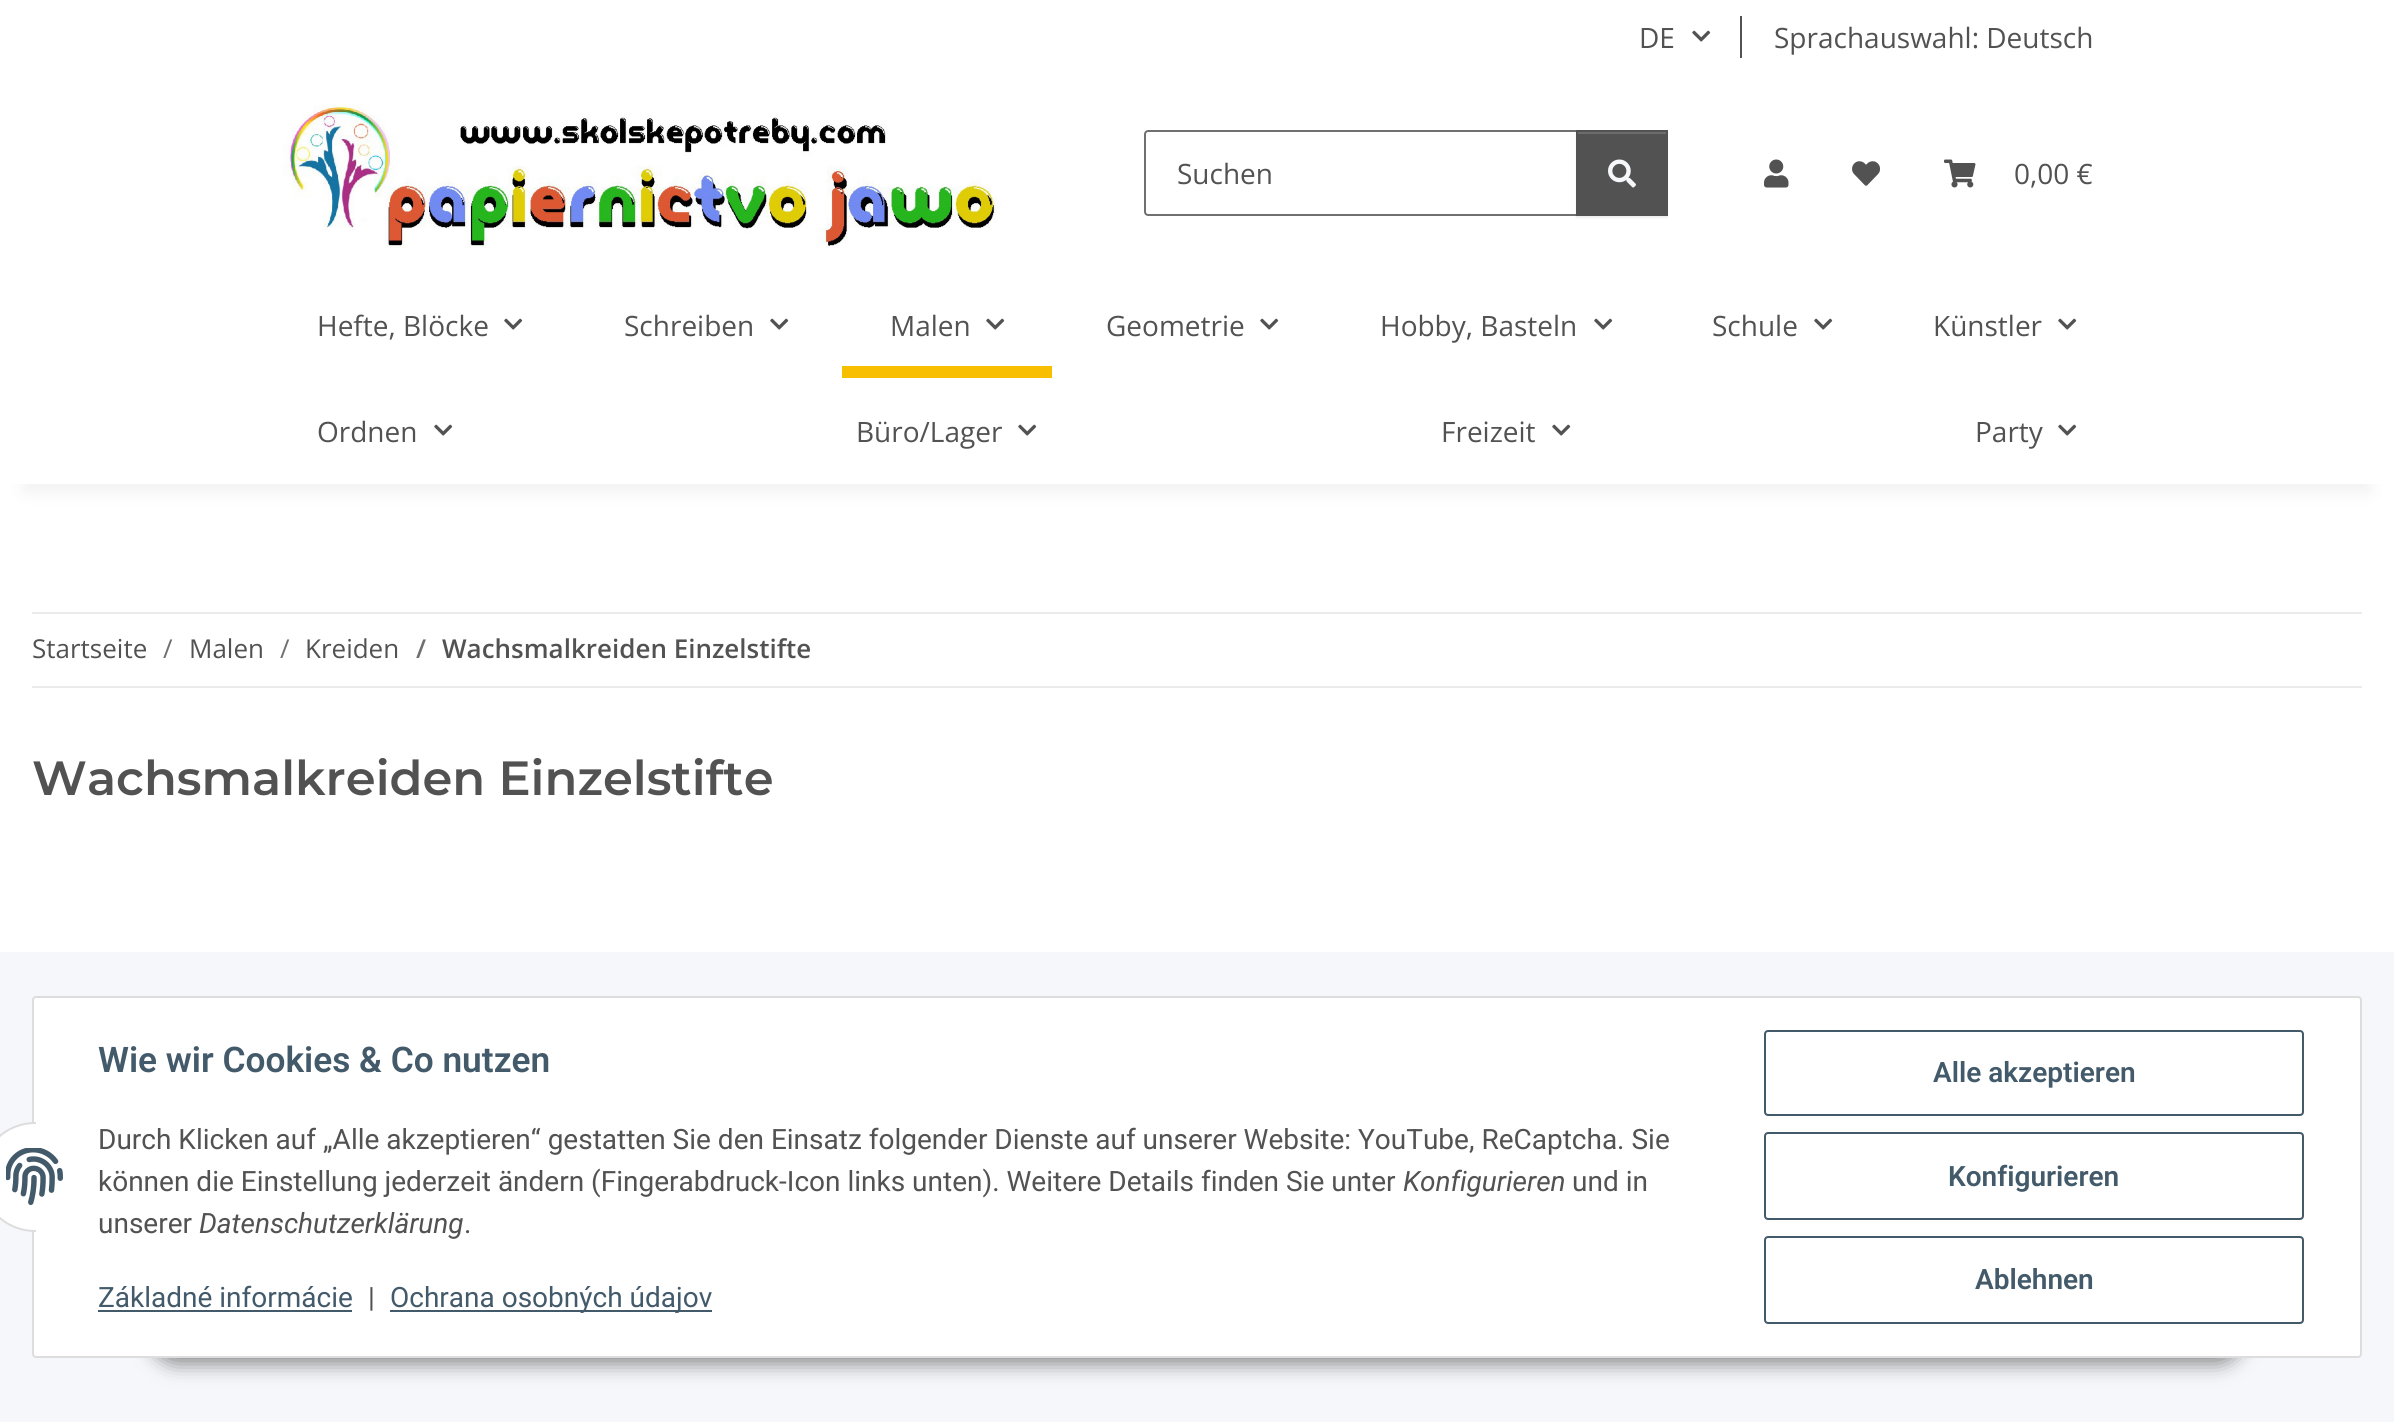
import math
import cairocffi as cairo

surface = cairo.ImageSurface(cairo.FORMAT_RGB24, 2394, 1422)
cr = cairo.Context(surface)
options = cairo.FontOptions()
options.set_hint_metrics(cairo.HINT_METRICS_OFF)
options.set_hint_style(cairo.HINT_STYLE_NONE)
cr.set_font_options(options)
cr.set_miter_limit(4)


def use_color(code):
    cr.set_source_rgb(*(v / 255 for v in bytes.fromhex(code[-6:])))


def round_rect(x, y, w, h, r):
    cr.new_sub_path()
    for i, (u, v) in enumerate([(x + w - r, y + h - r), (x + r, y + h - r), (x + r, y + r), (x + w - r, y + r)]):
        cr.arc(u, v, r, i * math.pi / 2, (i + 1) * math.pi / 2)
    cr.close_path()


def shadow(x, y, w, h, r, blur, alpha):
    cr.push_group_with_content(cairo.CONTENT_ALPHA)
    cr.set_operator(cairo.OPERATOR_SOURCE)
    for i in range(15, -16, -2):
        e = blur * i / 6
        if min(w, h) + 2 * e > 0:
            cr.set_source_rgba(0, 0, 0, alpha * math.erfc((i - 1) / 8.5) / 2)
            round_rect(x - e, y - e, w + 2 * e, h + 2 * e, max(0, min(r + e + blur * .6, min(w, h) / 2 + e)))
            cr.fill()
    cr.mask(cr.pop_group())


def picture(path, x, y, w, h):
    cr.save()
    cr.set_source_surface(cairo.ImageSurface.create_from_png(path), x, y)
    cr.rectangle(x, y, w, h)
    cr.fill()
    cr.restore()


use_color("#f5f7fa")
cr.paint()
use_color("#ffffff")
cr.rectangle(0, 484, 2394, 468)
cr.fill()
use_color("#000000")
shadow(24, 56, 2346, 436, 0, 9, 0.06)
use_color("#ffffff")
cr.rectangle(0, 0, 2394, 484)
cr.fill()
cr.select_font_face("Open Sans")
cr.set_font_size(28)
use_color("#525252")
cr.move_to(1639, 48)
cr.show_text("DE")
picture("img1.png", 1692, 30, 19, 12)
cr.rectangle(1740, 16, 2, 42)
cr.fill()
cr.move_to(1774, 48)
cr.show_text("Sprachauswahl: Deutsch")
picture("img2.png", 283, 104, 718, 144)
cr.new_path()
cr.move_to(1148, 131)
cr.line_to(1577, 131)
cr.line_to(1577, 215)
cr.line_to(1148, 215)
cr.curve_to(1146.5, 215, 1145, 213.5, 1145, 212)
cr.line_to(1145, 134)
cr.curve_to(1145, 132.5, 1146.5, 131, 1148, 131)
cr.close_path()
use_color("#707070")
cr.stroke()
use_color("#525252")
cr.move_to(1177, 184)
cr.show_text("Suchen")
use_color("#000000")
shadow(1576, 132, 92, 86, 0, 1, 0.07)
use_color("#525252")
cr.rectangle(1576, 130, 92, 86)
cr.fill()
use_color("#6c6c6c")
cr.rectangle(1578, 132, 88, 2)
cr.fill()
picture("img3.png", 1608, 159, 28, 29)
picture("img4.png", 1764, 159, 25, 29)
picture("img5.png", 1852, 161, 29, 25)
picture("img6.png", 1944, 159, 32, 29)
use_color("#525252")
cr.move_to(2014, 184)
cr.show_text("0,00 €")
cr.move_to(317, 336)
cr.show_text("Hefte, Blöcke")
picture("img1.png", 504, 318, 19, 12)
cr.move_to(624, 336)
cr.show_text("Schreiben")
picture("img1.png", 770, 318, 19, 12)
cr.move_to(890, 336)
cr.show_text("Malen")
picture("img1.png", 986, 318, 19, 12)
use_color("#f8bf00")
cr.rectangle(842, 366, 210, 12)
cr.fill()
use_color("#525252")
cr.move_to(1106, 336)
cr.show_text("Geometrie")
picture("img1.png", 1260, 318, 19, 12)
cr.move_to(1380, 336)
cr.show_text("Hobby, Basteln")
picture("img1.png", 1594, 318, 19, 12)
cr.move_to(1712, 336)
cr.show_text("Schule")
picture("img1.png", 1814, 318, 19, 12)
cr.move_to(1933, 336)
cr.show_text("Künstler")
picture("img1.png", 2058, 318, 19, 12)
cr.move_to(317, 442)
cr.show_text("Ordnen")
picture("img1.png", 434, 424, 19, 12)
cr.move_to(856, 442)
cr.show_text("Büro/Lager")
picture("img1.png", 1018, 424, 19, 12)
cr.move_to(1441, 442)
cr.show_text("Freizeit")
picture("img1.png", 1552, 424, 19, 12)
cr.move_to(1975, 442)
cr.show_text("Party")
picture("img1.png", 2058, 424, 19, 12)
use_color("#ebebeb")
cr.rectangle(32, 612, 2330, 2)
cr.fill()
cr.rectangle(32, 686, 2330, 2)
cr.fill()
cr.set_font_size(26)
use_color("#525252")
cr.move_to(32, 658)
cr.show_text("Startseite")
use_color("#707070")
cr.move_to(163, 658)
cr.show_text("/")
use_color("#525252")
cr.move_to(189, 658)
cr.show_text("Malen")
use_color("#707070")
cr.move_to(280, 658)
cr.show_text("/")
use_color("#525252")
cr.move_to(305, 658)
cr.show_text("Kreiden")
cr.select_font_face("Open Sans SemiBold")
use_color("#707070")
cr.move_to(416, 658)
cr.show_text("/")
use_color("#525252")
cr.move_to(442, 658)
cr.show_text("Wachsmalkreiden Einzelstifte")
cr.select_font_face("Montserrat SemiBold")
cr.set_font_size(48)
cr.move_to(32, 795)
cr.show_text("Wachsmalkreiden Einzelstifte")
use_color("#000000")
shadow(150, 1300, 2094, 64, 32, 10, 0.45)
use_color("#ffffff")
round_rect(33, 997, 2328, 360, 3)
cr.fill_preserve()
use_color("#dddddd")
cr.stroke()
use_color("#ffffff")
cr.arc(35, 1177, 54, 0, 2 * math.pi)
cr.fill_preserve()
use_color("#dddddd")
cr.stroke()
use_color("#ffffff")
cr.rectangle(36, 1122, 54, 110)
cr.fill()
picture("img7.png", 6, 1148, 57, 57)
cr.select_font_face("Roboto SemiBold")
cr.set_font_size(35.25)
use_color("#435a6b")
cr.move_to(98, 1072)
cr.show_text("Wie wir Cookies & Co nutzen")
cr.select_font_face("Roboto")
cr.set_font_size(28)
use_color("#525252")
cr.move_to(98, 1149)
cr.show_text("Durch Klicken auf „Alle akzeptieren“ gestatten Sie den Einsatz folgender Dienste auf unserer Website: YouTube, ReCaptcha. Sie")
cr.move_to(98, 1191)
cr.show_text("können die Einstellung jederzeit ändern (Fingerabdruck-Icon links unten). Weitere Details finden Sie unter")
cr.select_font_face("Roboto", cairo.FONT_SLANT_ITALIC)
cr.move_to(1403, 1191)
cr.show_text("Konfigurieren")
cr.select_font_face("Roboto")
cr.move_to(1572, 1191)
cr.show_text("und in")
cr.move_to(98, 1233)
cr.show_text("unserer")
cr.select_font_face("Roboto", cairo.FONT_SLANT_ITALIC)
cr.move_to(199, 1233)
cr.show_text("Datenschutzerklärung")
cr.select_font_face("Roboto")
cr.move_to(464, 1233)
cr.show_text(".")
use_color("#435a6b")
cr.move_to(98, 1307)
cr.show_text("Základné informácie")
cr.rectangle(98, 1310, 254, 2)
cr.fill()
use_color("#525252")
cr.move_to(368, 1307)
cr.show_text("|")
use_color("#435a6b")
cr.rectangle(390, 1310, 322, 2)
cr.fill()
cr.move_to(390, 1307)
cr.show_text("Ochrana osobných údajov")
round_rect(1765, 1031, 538, 84, 3)
cr.stroke()
cr.select_font_face("Roboto SemiBold")
cr.move_to(1933, 1082)
cr.show_text("Alle akzeptieren")
round_rect(1765, 1133, 538, 86, 3)
cr.stroke()
cr.move_to(1948, 1186)
cr.show_text("Konfigurieren")
round_rect(1765, 1237, 538, 86, 3)
cr.stroke()
cr.move_to(1975, 1289)
cr.show_text("Ablehnen")
surface.write_to_png("result.png")
